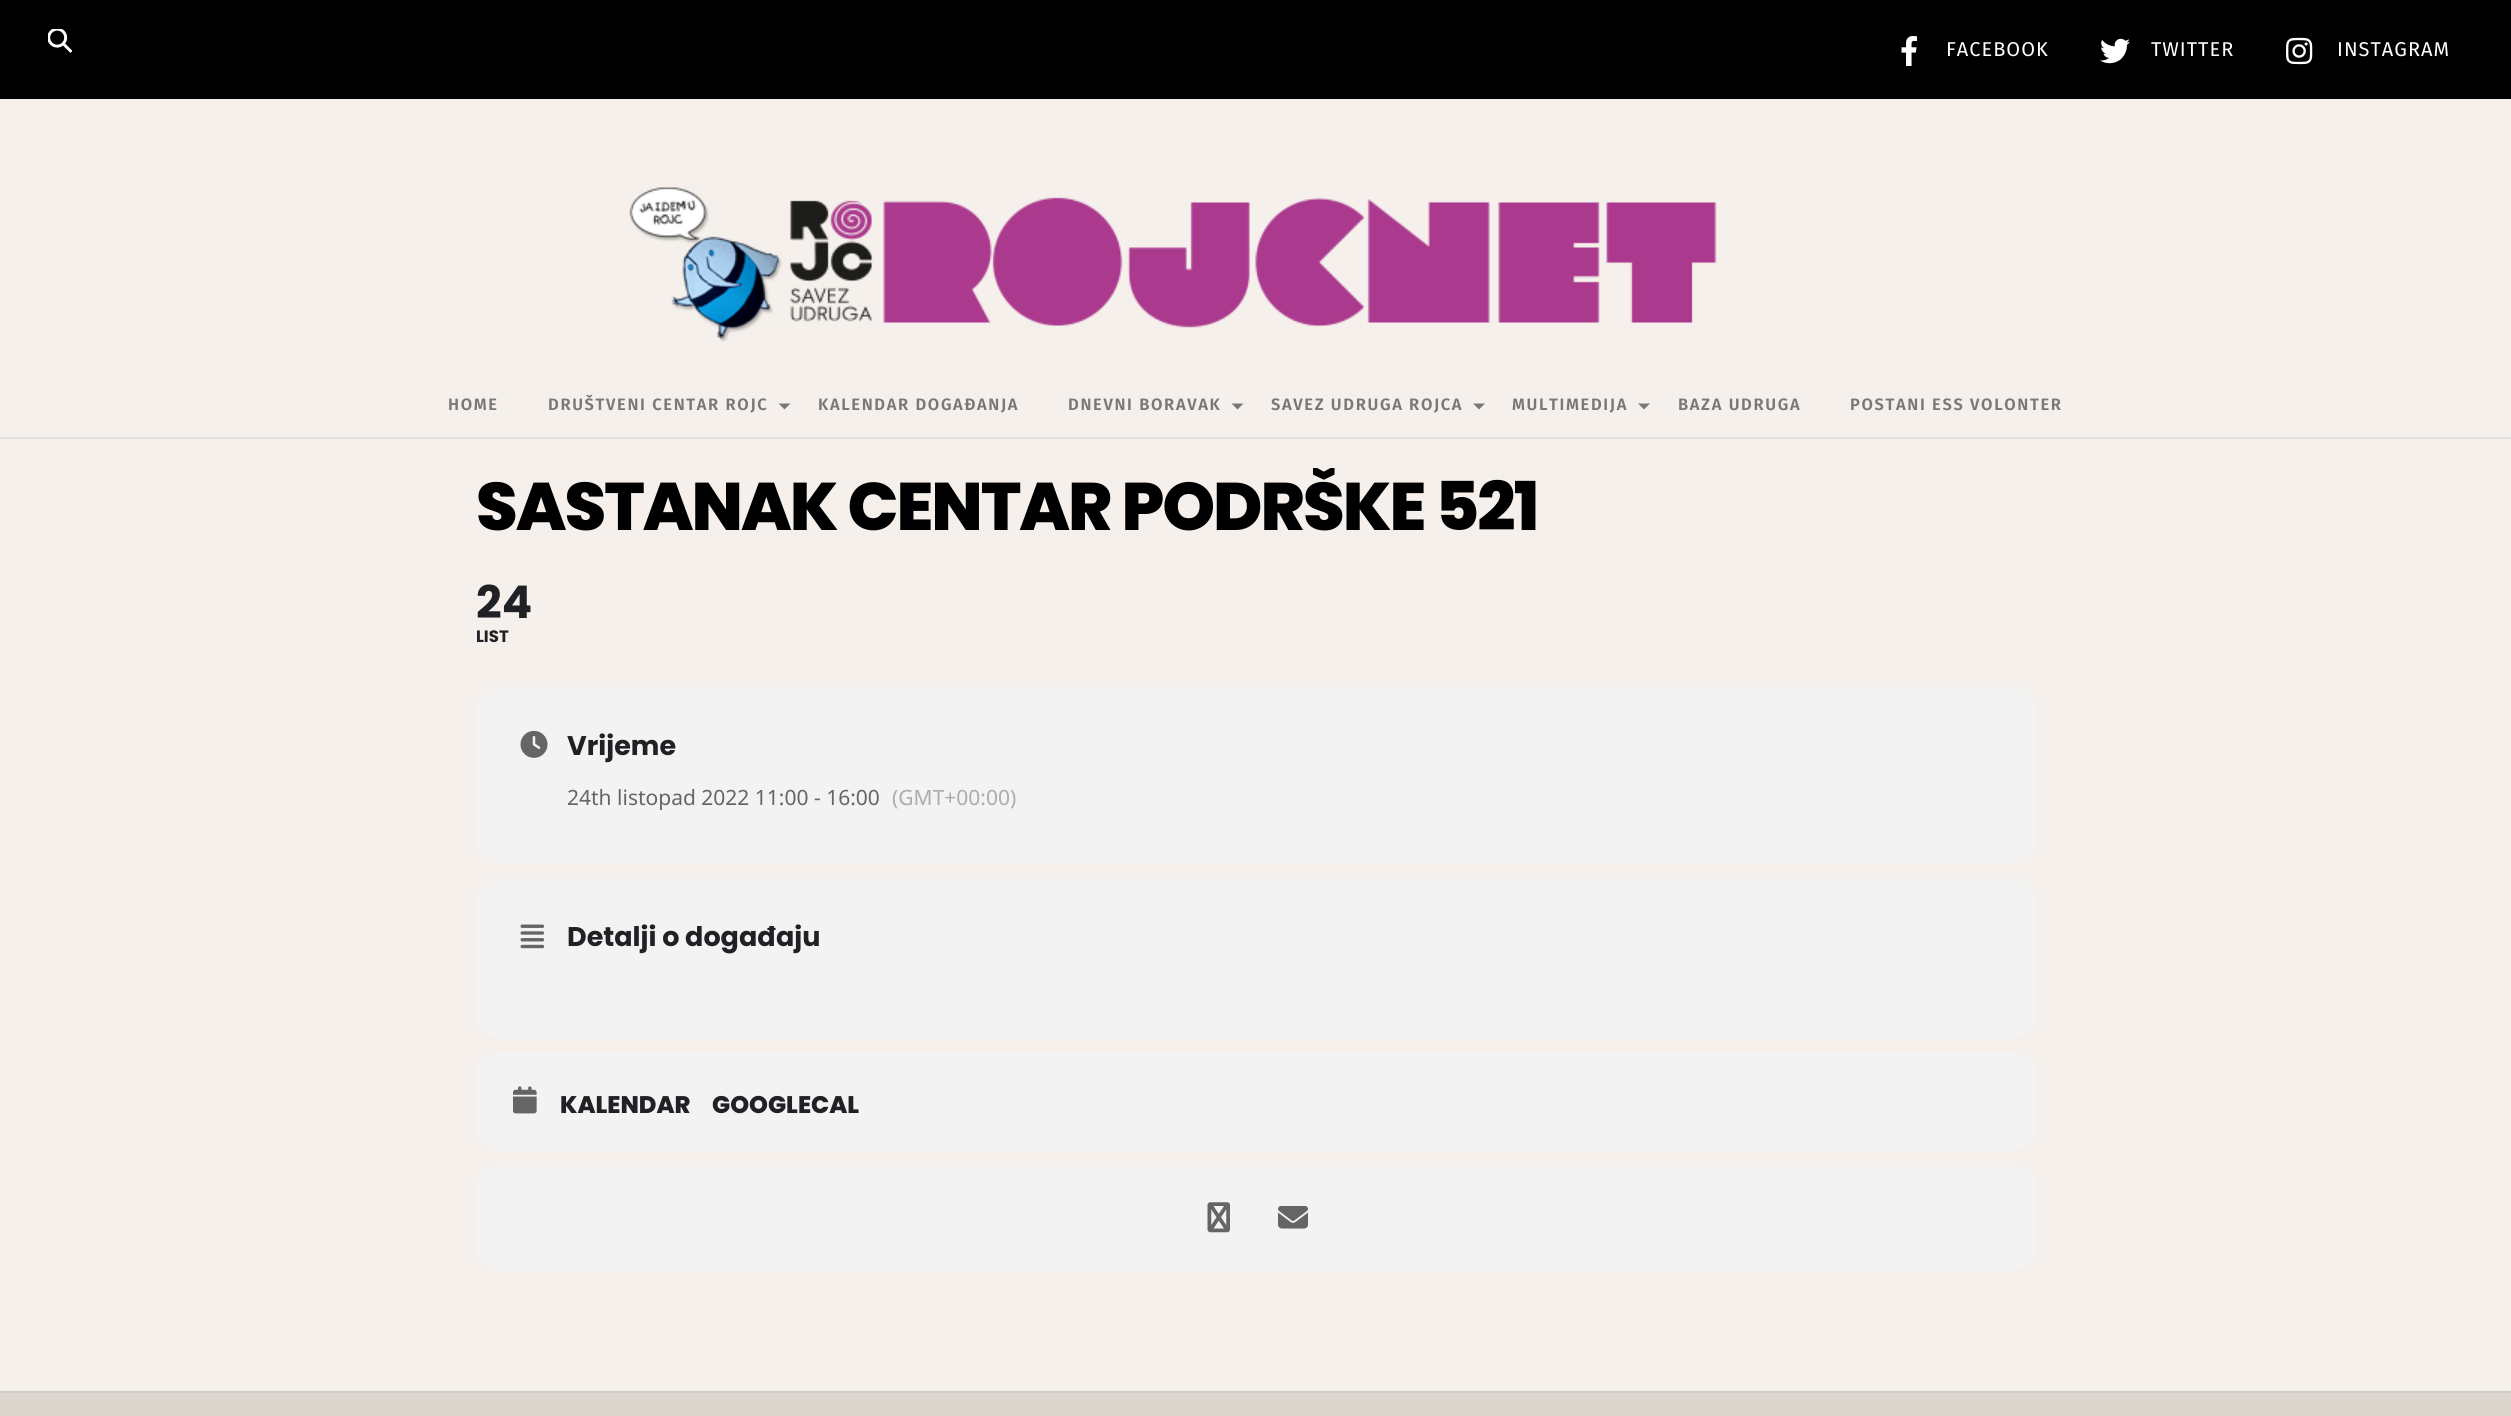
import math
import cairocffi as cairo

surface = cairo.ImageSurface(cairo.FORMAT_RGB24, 2511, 1416)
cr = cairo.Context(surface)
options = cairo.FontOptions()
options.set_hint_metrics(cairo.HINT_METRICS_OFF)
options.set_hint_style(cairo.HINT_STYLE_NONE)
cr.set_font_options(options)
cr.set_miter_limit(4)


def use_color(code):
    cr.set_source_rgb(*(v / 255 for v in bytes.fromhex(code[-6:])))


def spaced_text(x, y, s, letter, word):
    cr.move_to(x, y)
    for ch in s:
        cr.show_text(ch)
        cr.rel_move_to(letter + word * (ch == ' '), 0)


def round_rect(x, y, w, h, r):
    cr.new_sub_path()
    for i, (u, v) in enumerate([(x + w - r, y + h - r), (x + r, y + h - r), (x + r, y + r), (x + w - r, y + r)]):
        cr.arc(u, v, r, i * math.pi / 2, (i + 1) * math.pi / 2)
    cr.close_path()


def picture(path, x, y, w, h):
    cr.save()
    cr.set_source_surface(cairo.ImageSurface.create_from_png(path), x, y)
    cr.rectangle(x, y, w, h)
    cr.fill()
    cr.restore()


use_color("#f5f0eb")
cr.paint()
use_color("#e2dedb")
cr.rectangle(0, 437, 2511, 2)
cr.fill()
use_color("#000000")
cr.rectangle(0, 0, 2511, 99)
cr.fill()
picture("img1.png", 48, 29, 24, 24)
picture("img2.png", 1901, 36, 16, 30)
cr.select_font_face("Fira Sans")
cr.set_font_size(20)
use_color("#ffffff")
spaced_text(1946, 56, "FACEBOOK", 1, 0)
picture("img3.png", 2100, 38, 30, 26)
spaced_text(2151, 56, "TWITTER", 1, 0)
picture("img4.png", 2286, 37, 27, 28)
spaced_text(2337, 56, "INSTAGRAM", 1, 0)
picture("img5.png", 629, 187, 1088, 155)
cr.select_font_face("Fira Sans SemiBold")
cr.set_font_size(16.5)
use_color("#787878")
spaced_text(448, 410, "HOME", 1.65, 0)
spaced_text(548, 410, "DRUŠTVENI CENTAR ROJC", 1.65, 0)
cr.new_path()
cr.move_to(778.5, 403.5)
cr.line_to(790.5, 403.5)
cr.line_to(784.5, 409.5)
cr.close_path()
cr.fill()
spaced_text(818, 410, "KALENDAR DOGAĐANJA", 1.65, 0)
spaced_text(1068, 410, "DNEVNI BORAVAK", 1.65, 0)
cr.new_path()
cr.move_to(1231.5, 403.5)
cr.line_to(1243.5, 403.5)
cr.line_to(1237.5, 409.5)
cr.close_path()
cr.fill()
spaced_text(1271, 410, "SAVEZ UDRUGA ROJCA", 1.65, 0)
cr.new_path()
cr.move_to(1473, 403.5)
cr.line_to(1485, 403.5)
cr.line_to(1479, 409.5)
cr.close_path()
cr.fill()
spaced_text(1512, 410, "MULTIMEDIJA", 1.65, 0)
cr.new_path()
cr.move_to(1638, 403.5)
cr.line_to(1650, 403.5)
cr.line_to(1644, 409.5)
cr.close_path()
cr.fill()
spaced_text(1678, 410, "BAZA UDRUGA", 1.65, 0)
spaced_text(1850, 410, "POSTANI ESS VOLONTER", 1.65, 0)
cr.save()
round_rect(476, 468, 1560, 818, 8)
cr.clip()
cr.select_font_face("Poppins ExtraBold")
cr.set_font_size(67.25)
use_color("#000000")
spaced_text(476, 530, "SASTANAK CENTAR PODRŠKE 521", -2, 0)
cr.restore()
cr.select_font_face("Poppins", cairo.FONT_SLANT_NORMAL, cairo.FONT_WEIGHT_BOLD)
cr.set_font_size(45)
use_color("#202124")
cr.move_to(476, 618)
cr.show_text("24")
cr.set_font_size(16.5)
cr.move_to(476, 642)
cr.show_text("LIST")
use_color("#f3f3f3")
round_rect(476, 687, 1560, 177, 23)
cr.fill()
picture("img6.png", 520, 730, 28, 28)
cr.set_font_size(27)
use_color("#202124")
cr.move_to(567, 755)
cr.show_text("Vrijeme")
cr.select_font_face("Noto Sans")
cr.set_font_size(21)
use_color("#656565")
cr.move_to(567, 805)
cr.show_text("24th listopad 2022 11:00 - 16:00")
use_color("#acacac")
cr.move_to(892, 805)
cr.show_text("(GMT+00:00)")
use_color("#f3f3f3")
round_rect(476, 879, 1560, 159, 23)
cr.fill()
picture("img7.png", 520, 924, 25, 25)
cr.select_font_face("Poppins", cairo.FONT_SLANT_NORMAL, cairo.FONT_WEIGHT_BOLD)
cr.set_font_size(27)
use_color("#202124")
cr.move_to(567, 946)
cr.show_text("Detalji o događaju")
use_color("#f3f3f3")
round_rect(476, 1053, 1560, 98, 23)
cr.fill()
picture("img8.png", 513, 1086, 24, 28)
cr.select_font_face("Poppins ExtraBold")
cr.set_font_size(24)
use_color("#202124")
cr.move_to(560, 1113)
cr.show_text("KALENDAR")
cr.move_to(712, 1113)
cr.show_text("GOOGLECAL")
use_color("#f3f3f3")
round_rect(476, 1166, 1560, 105, 23)
cr.fill()
picture("img9.png", 1207, 1202, 23, 31)
picture("img10.png", 1278, 1206, 30, 23)
use_color("#dcd6cf")
cr.rectangle(0, 1393, 2511, 23)
cr.fill()
use_color("#d0ccc7")
cr.rectangle(0, 1391, 2511, 2)
cr.fill()
surface.write_to_png("result.png")
